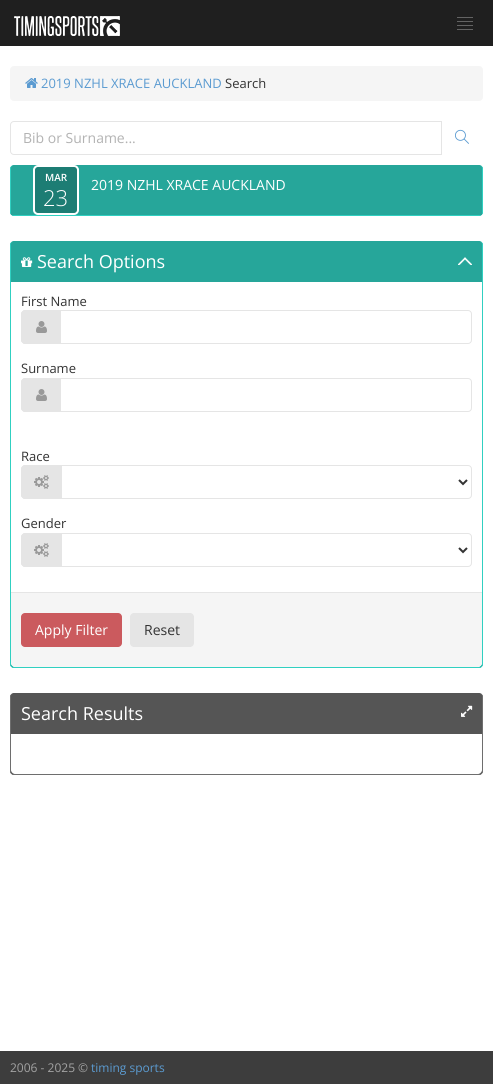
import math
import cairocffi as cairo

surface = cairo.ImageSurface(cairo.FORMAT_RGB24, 493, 1084)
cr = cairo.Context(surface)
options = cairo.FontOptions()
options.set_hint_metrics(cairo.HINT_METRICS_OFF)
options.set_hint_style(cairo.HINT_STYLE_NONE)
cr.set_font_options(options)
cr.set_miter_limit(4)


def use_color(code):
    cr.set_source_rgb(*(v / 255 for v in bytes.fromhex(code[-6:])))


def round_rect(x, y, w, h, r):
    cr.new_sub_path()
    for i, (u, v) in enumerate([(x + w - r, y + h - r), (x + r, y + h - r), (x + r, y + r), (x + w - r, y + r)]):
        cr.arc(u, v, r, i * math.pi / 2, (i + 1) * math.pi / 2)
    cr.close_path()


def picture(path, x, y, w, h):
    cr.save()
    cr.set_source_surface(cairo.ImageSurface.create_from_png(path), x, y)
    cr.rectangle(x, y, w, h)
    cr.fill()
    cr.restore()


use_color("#3d3d3d")
cr.paint()
use_color("#1f1f1f")
cr.rectangle(0, 0, 493, 46)
cr.fill()
picture("img1.png", 14, 16, 106, 20)
picture("img2.png", 457, 17, 16, 13)
use_color("#ffffff")
cr.rectangle(0, 46, 493, 1005)
cr.fill()
use_color("#f5f5f5")
round_rect(10, 66, 473, 35, 4)
cr.fill()
picture("img3.png", 25, 78, 13, 10)
cr.select_font_face("Open Sans")
cr.set_font_size(13)
use_color("#5b9bd1")
cr.move_to(41, 88)
cr.show_text("2019 NZHL XRACE AUCKLAND")
use_color("#333333")
cr.move_to(225, 88)
cr.show_text("Search")
cr.new_path()
cr.move_to(14, 121.5)
cr.line_to(441.5, 121.5)
cr.line_to(441.5, 154.5)
cr.line_to(14, 154.5)
cr.curve_to(12, 154.5, 10.5, 153, 10.5, 151)
cr.line_to(10.5, 125)
cr.curve_to(10.5, 123, 12, 121.5, 14, 121.5)
cr.close_path()
use_color("#e5e5e5")
cr.set_line_width(1)
cr.stroke()
cr.set_font_size(14)
use_color("#b3b3b3")
cr.move_to(23, 143)
cr.show_text("Bib or Surname...")
picture("img4.png", 455, 129, 14, 15)
use_color("#26a69a")
round_rect(10, 165, 473, 51, 4)
cr.fill()
use_color("#30d0c1")
cr.set_fill_rule(cairo.FILL_RULE_EVEN_ODD)
cr.new_path()
cr.move_to(14, 165)
cr.line_to(479, 165)
cr.curve_to(481, 165, 483, 167, 483, 169)
cr.line_to(483, 212)
cr.curve_to(483, 214, 481, 216, 479, 216)
cr.line_to(14, 216)
cr.curve_to(12, 216, 10, 214, 10, 212)
cr.line_to(10, 169)
cr.curve_to(10, 167, 12, 165, 14, 165)
cr.close_path()
cr.move_to(14, 165)
cr.line_to(479, 165)
cr.curve_to(481, 165, 482, 167, 482, 169)
cr.line_to(482, 212)
cr.curve_to(482, 214, 481, 215, 479, 215)
cr.line_to(14, 215)
cr.curve_to(12, 215, 11, 214, 11, 212)
cr.line_to(11, 169)
cr.curve_to(11, 167, 12, 165, 14, 165)
cr.close_path()
cr.fill()
use_color("#26a69a")
cr.new_path()
cr.move_to(15, 165)
cr.line_to(478, 165)
cr.curve_to(480, 165, 482, 167, 482, 169)
cr.line_to(482, 215)
cr.line_to(11, 215)
cr.line_to(11, 169)
cr.curve_to(11, 167, 13, 165, 15, 165)
cr.close_path()
cr.fill()
use_color("#1d7d74")
round_rect(34, 166, 44, 48, 4)
cr.fill_preserve()
use_color("#ffffff")
cr.set_line_width(2)
cr.stroke()
cr.select_font_face("Open Sans SemiBold")
cr.set_font_size(10)
cr.move_to(45, 181)
cr.show_text("MAR")
cr.select_font_face("Open Sans Light")
cr.set_font_size(22)
cr.move_to(43, 206)
cr.show_text("23")
cr.select_font_face("Open Sans")
cr.set_font_size(14)
cr.move_to(91, 190)
cr.show_text("2019 NZHL XRACE AUCKLAND")
use_color("#26a69a")
round_rect(10, 241, 473, 427, 4)
cr.fill()
use_color("#30d0c1")
cr.new_path()
cr.move_to(14, 241)
cr.line_to(479, 241)
cr.curve_to(481, 241, 483, 243, 483, 245)
cr.line_to(483, 664)
cr.curve_to(483, 666, 481, 668, 479, 668)
cr.line_to(14, 668)
cr.curve_to(12, 668, 10, 666, 10, 664)
cr.line_to(10, 245)
cr.curve_to(10, 243, 12, 241, 14, 241)
cr.close_path()
cr.move_to(14, 241)
cr.line_to(479, 241)
cr.curve_to(481, 241, 482, 243, 482, 245)
cr.line_to(482, 664)
cr.curve_to(482, 666, 481, 667, 479, 667)
cr.line_to(14, 667)
cr.curve_to(12, 667, 11, 666, 11, 664)
cr.line_to(11, 245)
cr.curve_to(11, 243, 12, 241, 14, 241)
cr.close_path()
cr.fill()
use_color("#26a69a")
cr.new_path()
cr.move_to(15, 241)
cr.line_to(478, 241)
cr.curve_to(480, 241, 482, 243, 482, 245)
cr.line_to(482, 282)
cr.line_to(11, 282)
cr.line_to(11, 245)
cr.curve_to(11, 243, 13, 241, 15, 241)
cr.close_path()
cr.fill()
picture("img5.png", 21, 257, 12, 10)
cr.set_font_size(18)
use_color("#ffffff")
cr.move_to(37, 268)
cr.show_text("Search Options")
picture("img6.png", 458, 257, 14, 8)
cr.new_path()
cr.move_to(11, 282)
cr.line_to(482, 282)
cr.line_to(482, 663)
cr.curve_to(482, 665, 480, 667, 478, 667)
cr.line_to(15, 667)
cr.curve_to(13, 667, 11, 665, 11, 663)
cr.close_path()
cr.fill()
cr.set_font_size(13)
use_color("#333333")
cr.move_to(21, 306)
cr.show_text("First Name")
use_color("#e5e5e5")
cr.new_path()
cr.move_to(25, 310)
cr.line_to(60, 310)
cr.line_to(60, 344)
cr.line_to(25, 344)
cr.curve_to(23, 344, 21, 342, 21, 340)
cr.line_to(21, 314)
cr.curve_to(21, 312, 23, 310, 25, 310)
cr.close_path()
cr.fill()
cr.new_path()
cr.move_to(25, 310)
cr.line_to(60, 310)
cr.line_to(60, 344)
cr.line_to(25, 344)
cr.curve_to(23, 344, 21, 342, 21, 340)
cr.line_to(21, 314)
cr.curve_to(21, 312, 23, 310, 25, 310)
cr.close_path()
cr.move_to(25, 311)
cr.line_to(60, 311)
cr.line_to(60, 343)
cr.line_to(25, 343)
cr.curve_to(23.5, 343, 22, 341.5, 22, 340)
cr.line_to(22, 314)
cr.curve_to(22, 312.5, 23.5, 311, 25, 311)
cr.close_path()
cr.fill()
picture("img7.png", 36, 321, 11, 12)
cr.new_path()
cr.move_to(60.5, 310.5)
cr.line_to(468, 310.5)
cr.curve_to(470, 310.5, 471.5, 312, 471.5, 314)
cr.line_to(471.5, 340)
cr.curve_to(471.5, 342, 470, 343.5, 468, 343.5)
cr.line_to(60.5, 343.5)
cr.close_path()
cr.set_line_width(1)
cr.stroke()
use_color("#333333")
cr.move_to(21, 373)
cr.show_text("Surname")
use_color("#e5e5e5")
cr.new_path()
cr.move_to(25, 378)
cr.line_to(60, 378)
cr.line_to(60, 412)
cr.line_to(25, 412)
cr.curve_to(23, 412, 21, 410, 21, 408)
cr.line_to(21, 382)
cr.curve_to(21, 380, 23, 378, 25, 378)
cr.close_path()
cr.fill()
cr.new_path()
cr.move_to(25, 378)
cr.line_to(60, 378)
cr.line_to(60, 412)
cr.line_to(25, 412)
cr.curve_to(23, 412, 21, 410, 21, 408)
cr.line_to(21, 382)
cr.curve_to(21, 380, 23, 378, 25, 378)
cr.close_path()
cr.move_to(25, 379)
cr.line_to(60, 379)
cr.line_to(60, 411)
cr.line_to(25, 411)
cr.curve_to(23.5, 411, 22, 409.5, 22, 408)
cr.line_to(22, 382)
cr.curve_to(22, 380.5, 23.5, 379, 25, 379)
cr.close_path()
cr.fill()
picture("img7.png", 36, 389, 11, 12)
cr.new_path()
cr.move_to(60.5, 378.5)
cr.line_to(468, 378.5)
cr.curve_to(470, 378.5, 471.5, 380, 471.5, 382)
cr.line_to(471.5, 408)
cr.curve_to(471.5, 410, 470, 411.5, 468, 411.5)
cr.line_to(60.5, 411.5)
cr.close_path()
cr.stroke()
use_color("#333333")
cr.move_to(21, 461)
cr.show_text("Race")
use_color("#e5e5e5")
cr.new_path()
cr.move_to(25, 465)
cr.line_to(61, 465)
cr.line_to(61, 499)
cr.line_to(25, 499)
cr.curve_to(23, 499, 21, 497, 21, 495)
cr.line_to(21, 469)
cr.curve_to(21, 467, 23, 465, 25, 465)
cr.close_path()
cr.fill()
cr.new_path()
cr.move_to(25, 465)
cr.line_to(61, 465)
cr.line_to(61, 499)
cr.line_to(25, 499)
cr.curve_to(23, 499, 21, 497, 21, 495)
cr.line_to(21, 469)
cr.curve_to(21, 467, 23, 465, 25, 465)
cr.close_path()
cr.move_to(25, 466)
cr.line_to(61, 466)
cr.line_to(61, 498)
cr.line_to(25, 498)
cr.curve_to(23, 498, 22, 497, 22, 495)
cr.line_to(22, 469)
cr.curve_to(22, 467, 23, 466, 25, 466)
cr.close_path()
cr.fill()
picture("img8.png", 34, 475, 15, 14)
cr.new_path()
cr.move_to(61.5, 465.5)
cr.line_to(468, 465.5)
cr.curve_to(470, 465.5, 471.5, 467, 471.5, 469)
cr.line_to(471.5, 495)
cr.curve_to(471.5, 497, 470, 498.5, 468, 498.5)
cr.line_to(61.5, 498.5)
cr.close_path()
cr.stroke()
cr.new_path()
cr.move_to(459, 480)
cr.line_to(463, 484)
cr.line_to(467, 480)
use_color("#333333")
cr.set_line_width(2)
cr.stroke()
cr.move_to(21, 528)
cr.show_text("Gender")
use_color("#e5e5e5")
cr.new_path()
cr.move_to(25, 533)
cr.line_to(61, 533)
cr.line_to(61, 567)
cr.line_to(25, 567)
cr.curve_to(23, 567, 21, 565, 21, 563)
cr.line_to(21, 537)
cr.curve_to(21, 535, 23, 533, 25, 533)
cr.close_path()
cr.fill()
cr.new_path()
cr.move_to(25, 533)
cr.line_to(61, 533)
cr.line_to(61, 567)
cr.line_to(25, 567)
cr.curve_to(23, 567, 21, 565, 21, 563)
cr.line_to(21, 537)
cr.curve_to(21, 535, 23, 533, 25, 533)
cr.close_path()
cr.move_to(25, 534)
cr.line_to(61, 534)
cr.line_to(61, 566)
cr.line_to(25, 566)
cr.curve_to(23, 566, 22, 565, 22, 563)
cr.line_to(22, 537)
cr.curve_to(22, 535, 23, 534, 25, 534)
cr.close_path()
cr.fill()
picture("img8.png", 34, 543, 15, 14)
cr.new_path()
cr.move_to(61.5, 533.5)
cr.line_to(468, 533.5)
cr.curve_to(470, 533.5, 471.5, 535, 471.5, 537)
cr.line_to(471.5, 563)
cr.curve_to(471.5, 565, 470, 566.5, 468, 566.5)
cr.line_to(61.5, 566.5)
cr.close_path()
cr.set_line_width(1)
cr.stroke()
cr.new_path()
cr.move_to(459, 548)
cr.line_to(463, 552)
cr.line_to(467, 548)
use_color("#333333")
cr.set_line_width(2)
cr.stroke()
use_color("#f5f5f5")
cr.new_path()
cr.move_to(11, 592)
cr.line_to(482, 592)
cr.line_to(482, 663)
cr.curve_to(482, 665, 480, 667, 478, 667)
cr.line_to(15, 667)
cr.curve_to(13, 667, 11, 665, 11, 663)
cr.close_path()
cr.fill()
use_color("#e5e5e5")
cr.rectangle(11, 592, 471, 1)
cr.fill()
use_color("#cb5a5e")
round_rect(21, 613, 101, 34, 4)
cr.fill()
cr.set_font_size(14)
use_color("#ffffff")
cr.move_to(35, 635)
cr.show_text("Apply Filter")
use_color("#e5e5e5")
round_rect(130, 613, 64, 34, 4)
cr.fill()
use_color("#333333")
cr.move_to(144, 635)
cr.show_text("Reset")
use_color("#555555")
round_rect(10, 693, 473, 82, 4)
cr.fill()
use_color("#6e6e6e")
cr.new_path()
cr.move_to(14, 693)
cr.line_to(479, 693)
cr.curve_to(481, 693, 483, 695, 483, 697)
cr.line_to(483, 771)
cr.curve_to(483, 773, 481, 775, 479, 775)
cr.line_to(14, 775)
cr.curve_to(12, 775, 10, 773, 10, 771)
cr.line_to(10, 697)
cr.curve_to(10, 695, 12, 693, 14, 693)
cr.close_path()
cr.move_to(14, 693)
cr.line_to(479, 693)
cr.curve_to(481, 693, 482, 695, 482, 697)
cr.line_to(482, 771)
cr.curve_to(482, 773, 481, 774, 479, 774)
cr.line_to(14, 774)
cr.curve_to(12, 774, 11, 773, 11, 771)
cr.line_to(11, 697)
cr.curve_to(11, 695, 12, 693, 14, 693)
cr.close_path()
cr.fill()
use_color("#555555")
cr.new_path()
cr.move_to(15, 693)
cr.line_to(478, 693)
cr.curve_to(480, 693, 482, 695, 482, 697)
cr.line_to(482, 734)
cr.line_to(11, 734)
cr.line_to(11, 697)
cr.curve_to(11, 695, 13, 693, 15, 693)
cr.close_path()
cr.fill()
cr.set_font_size(18)
use_color("#ffffff")
cr.move_to(21, 720)
cr.show_text("Search Results")
picture("img9.png", 461, 705, 12, 12)
cr.new_path()
cr.move_to(11, 734)
cr.line_to(482, 734)
cr.line_to(482, 770)
cr.curve_to(482, 772, 480, 774, 478, 774)
cr.line_to(15, 774)
cr.curve_to(13, 774, 11, 772, 11, 770)
cr.close_path()
cr.fill()
cr.set_font_size(12)
use_color("#a3a3a3")
cr.move_to(10, 1072)
cr.show_text("2006 - 2025 ©")
use_color("#5b9bd1")
cr.move_to(91, 1072)
cr.show_text("timing sports")
surface.write_to_png("result.png")
